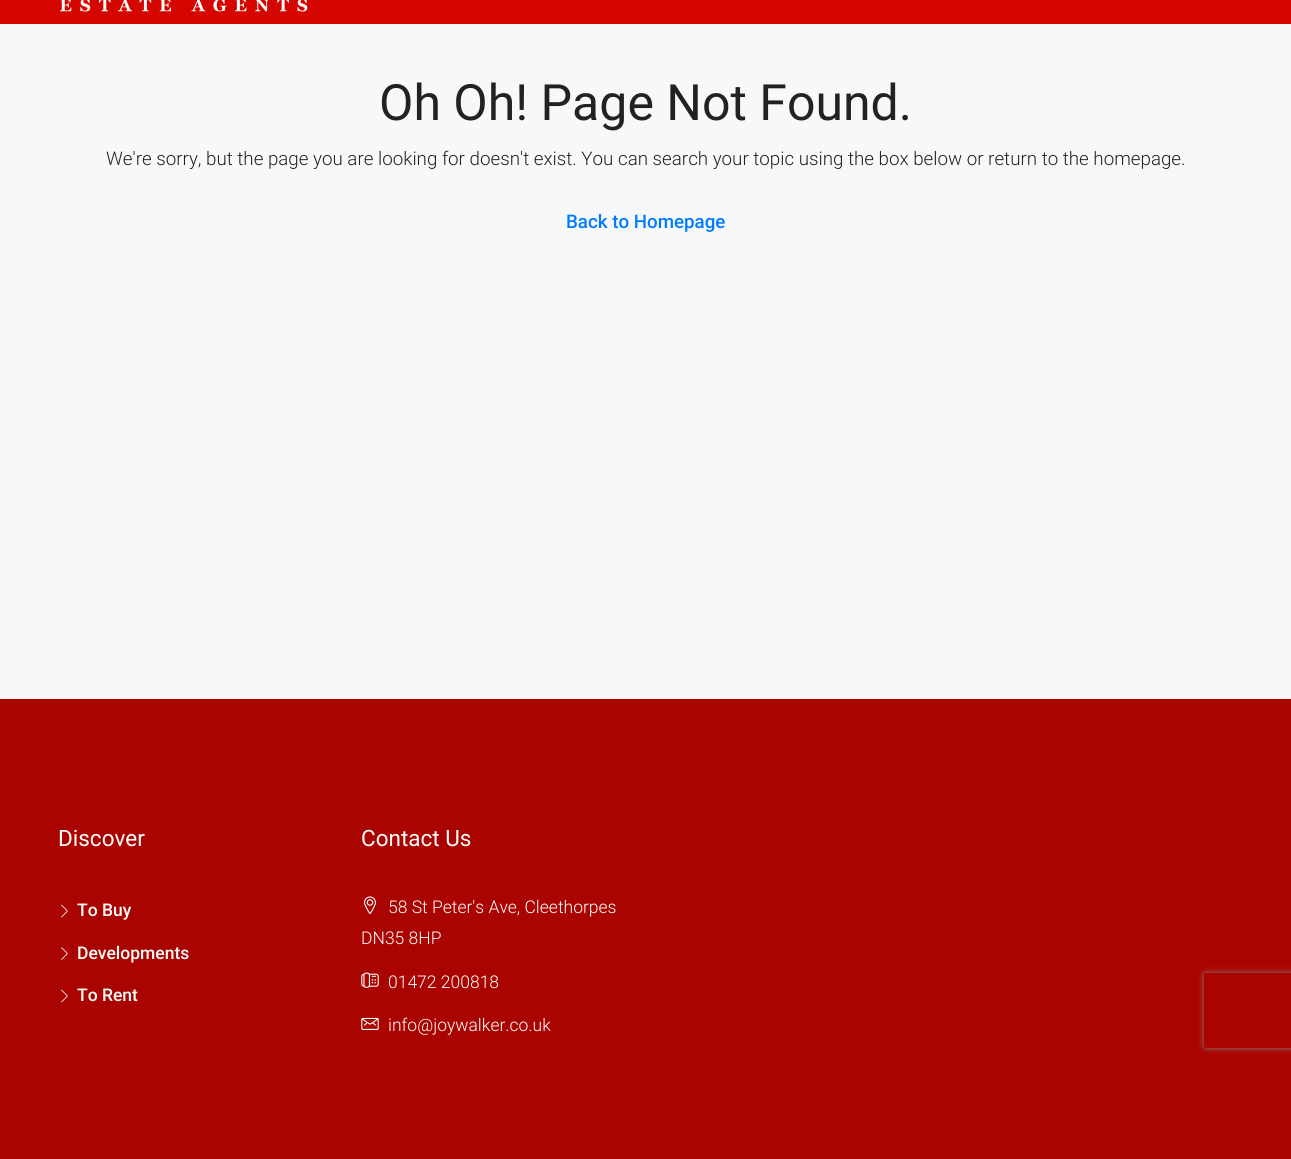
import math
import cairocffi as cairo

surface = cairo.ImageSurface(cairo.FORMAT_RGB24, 1291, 1159)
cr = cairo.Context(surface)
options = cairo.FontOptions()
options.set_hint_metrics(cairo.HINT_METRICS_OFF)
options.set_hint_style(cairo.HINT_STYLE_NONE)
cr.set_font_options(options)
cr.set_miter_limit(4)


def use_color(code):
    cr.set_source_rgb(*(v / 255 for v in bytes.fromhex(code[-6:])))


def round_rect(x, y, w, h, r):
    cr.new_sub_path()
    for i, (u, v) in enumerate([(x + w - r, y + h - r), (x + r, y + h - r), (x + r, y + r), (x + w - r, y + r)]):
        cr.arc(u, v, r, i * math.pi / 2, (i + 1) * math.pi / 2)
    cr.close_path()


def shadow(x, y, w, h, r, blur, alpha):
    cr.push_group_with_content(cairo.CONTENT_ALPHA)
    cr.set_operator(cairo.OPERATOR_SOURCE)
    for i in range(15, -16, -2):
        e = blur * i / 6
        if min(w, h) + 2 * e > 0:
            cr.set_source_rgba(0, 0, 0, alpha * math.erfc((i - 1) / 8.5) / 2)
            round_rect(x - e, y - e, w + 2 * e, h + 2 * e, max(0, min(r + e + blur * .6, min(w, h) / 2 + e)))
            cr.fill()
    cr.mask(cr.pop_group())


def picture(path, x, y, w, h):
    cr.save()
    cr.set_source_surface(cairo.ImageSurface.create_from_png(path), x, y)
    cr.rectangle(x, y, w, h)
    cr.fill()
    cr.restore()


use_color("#f7f8f9")
cr.paint()
use_color("#d50500")
cr.rectangle(0, 0, 1291, 24)
cr.fill()
picture("img1.png", 60, 0, 248, 12)
cr.select_font_face("Roboto")
cr.set_font_size(50)
use_color("#222222")
cr.move_to(379, 120)
cr.show_text("Oh Oh! Page Not Found.")
cr.select_font_face("Roboto Light")
cr.set_font_size(18.75)
cr.move_to(106, 165)
cr.show_text("We're sorry, but the page you are looking for doesn't exist. You can search your topic using the box below or return to the homepage.")
cr.select_font_face("Roboto Medium")
use_color("#007bff")
cr.move_to(566, 228)
cr.show_text("Back to Homepage")
use_color("#aa0400")
cr.rectangle(0, 699, 1291, 460)
cr.fill()
cr.select_font_face("Roboto")
cr.set_font_size(22.5)
use_color("#ffffff")
cr.move_to(58, 846)
cr.show_text("Discover")
picture("img2.png", 61, 904, 7, 14)
cr.select_font_face("Roboto Medium")
cr.set_font_size(17.5)
cr.move_to(77, 916)
cr.show_text("To Buy")
picture("img3.png", 61, 947, 7, 13)
cr.move_to(77, 959)
cr.show_text("Developments")
picture("img2.png", 61, 989, 7, 14)
cr.move_to(77, 1001)
cr.show_text("To Rent")
cr.select_font_face("Roboto")
cr.set_font_size(22.5)
cr.move_to(361, 846)
cr.show_text("Contact Us")
picture("img4.png", 364, 896, 12, 18)
cr.select_font_face("Roboto Light")
cr.set_font_size(17.5)
cr.move_to(388, 913)
cr.show_text("58 St Peter's Ave, Cleethorpes")
cr.move_to(361, 944)
cr.show_text("DN35 8HP")
picture("img5.png", 361, 972, 18, 16)
cr.move_to(388, 988)
cr.show_text("01472 200818")
picture("img6.png", 361, 1017, 18, 13)
cr.move_to(388, 1031)
cr.show_text("info@joywalker.co.uk")
cr.save()
cr.set_fill_rule(cairo.FILL_RULE_EVEN_ODD)
cr.new_path()
cr.move_to(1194, 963)
cr.line_to(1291, 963)
cr.line_to(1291, 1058)
cr.line_to(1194, 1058)
cr.close_path()
cr.move_to(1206.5, 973)
cr.line_to(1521.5, 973)
cr.curve_to(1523, 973, 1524, 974, 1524, 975.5)
cr.line_to(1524, 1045.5)
cr.curve_to(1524, 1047, 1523, 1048, 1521.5, 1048)
cr.line_to(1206.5, 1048)
cr.curve_to(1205, 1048, 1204, 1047, 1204, 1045.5)
cr.line_to(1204, 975.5)
cr.curve_to(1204, 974, 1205, 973, 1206.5, 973)
cr.close_path()
cr.clip()
use_color("#808080")
shadow(1204, 973, 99, 75, 2.5, 3, 1)
cr.restore()
surface.write_to_png("result.png")
